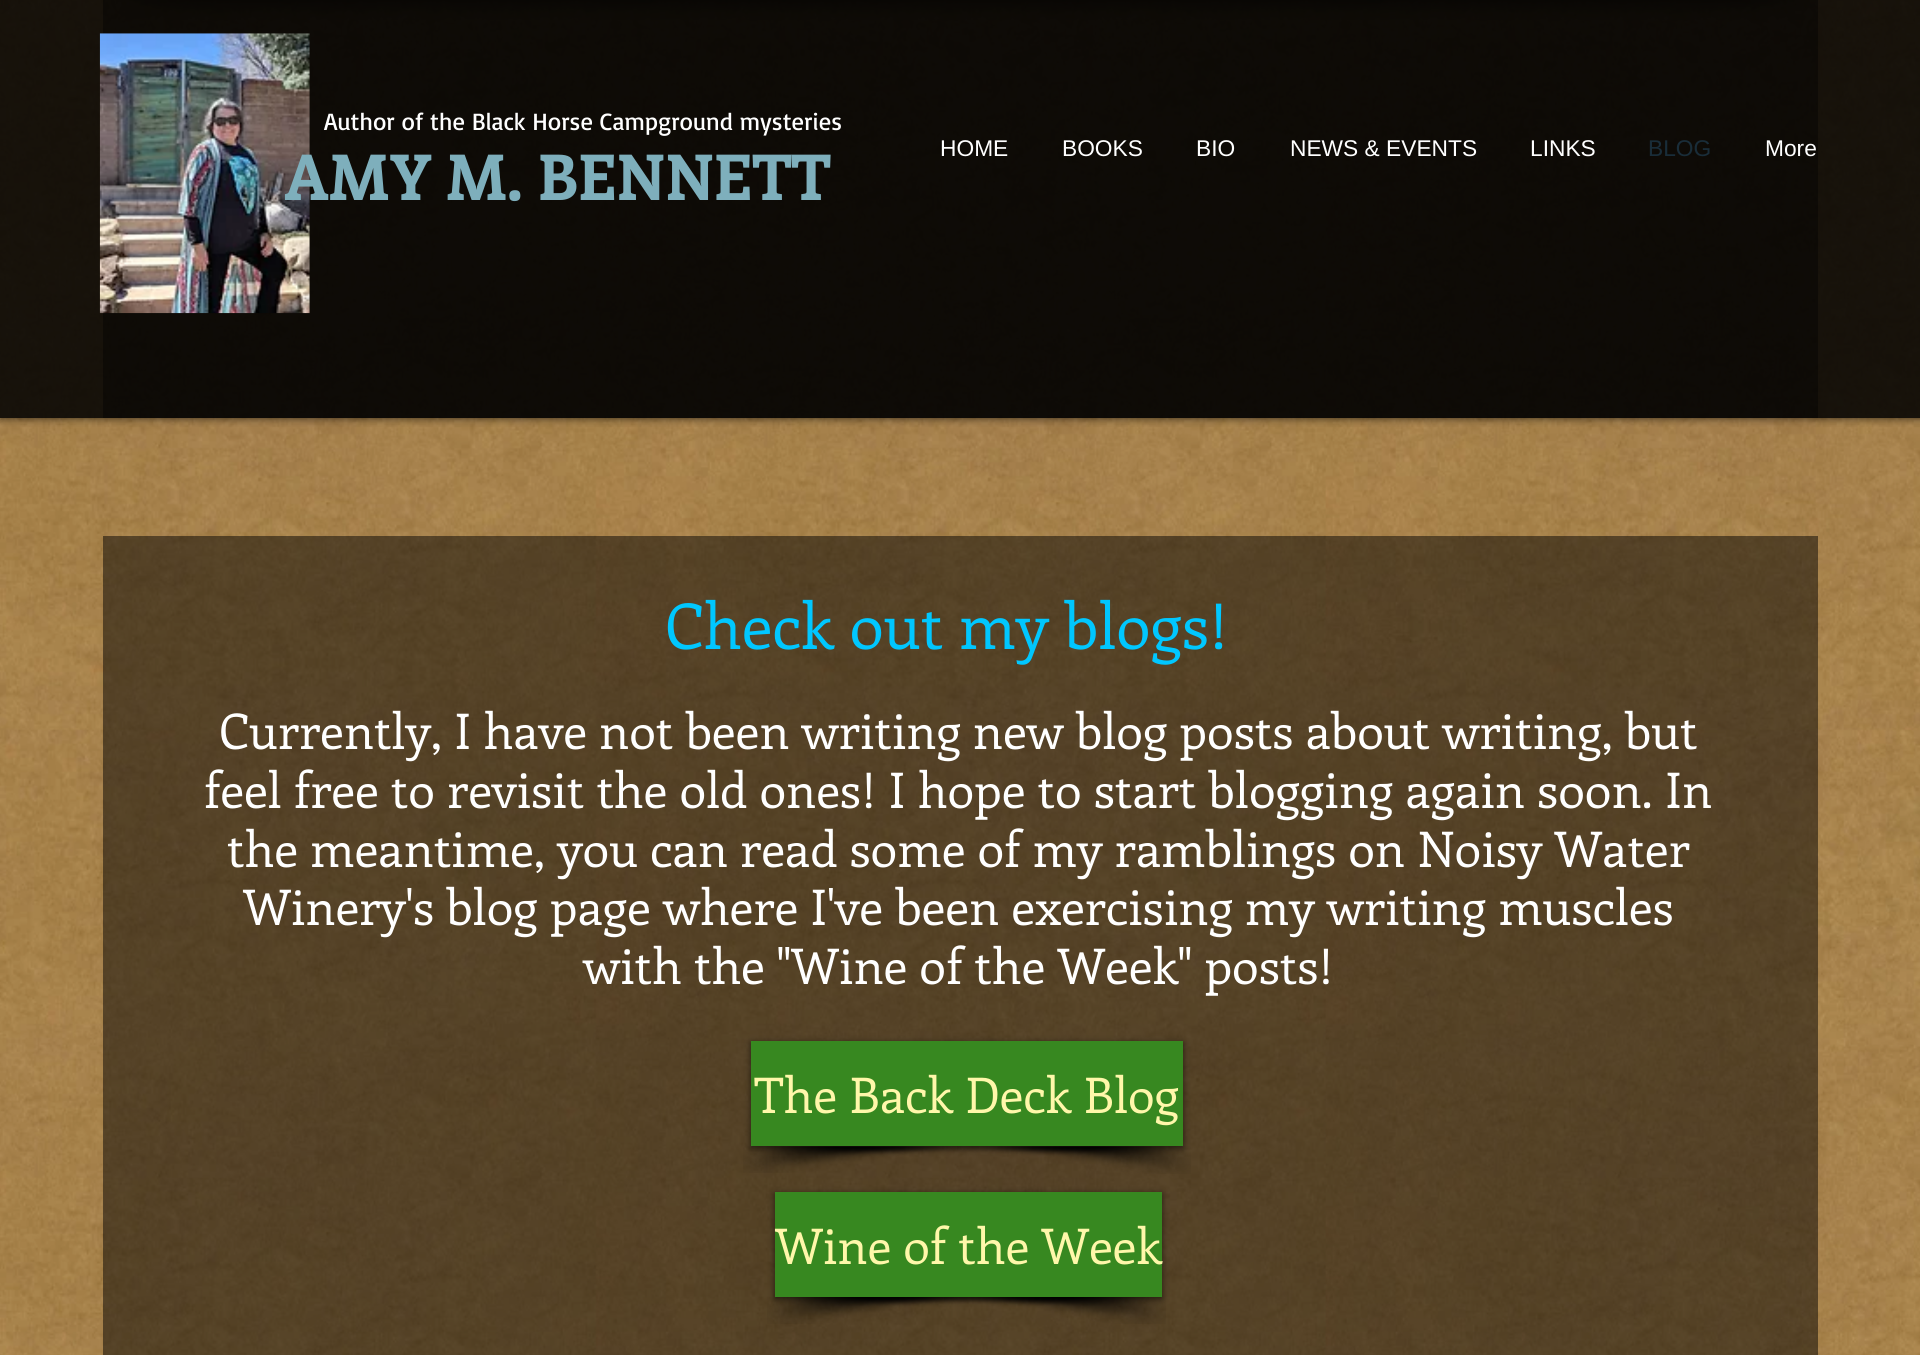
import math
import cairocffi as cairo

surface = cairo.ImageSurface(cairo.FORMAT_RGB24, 1920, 1355)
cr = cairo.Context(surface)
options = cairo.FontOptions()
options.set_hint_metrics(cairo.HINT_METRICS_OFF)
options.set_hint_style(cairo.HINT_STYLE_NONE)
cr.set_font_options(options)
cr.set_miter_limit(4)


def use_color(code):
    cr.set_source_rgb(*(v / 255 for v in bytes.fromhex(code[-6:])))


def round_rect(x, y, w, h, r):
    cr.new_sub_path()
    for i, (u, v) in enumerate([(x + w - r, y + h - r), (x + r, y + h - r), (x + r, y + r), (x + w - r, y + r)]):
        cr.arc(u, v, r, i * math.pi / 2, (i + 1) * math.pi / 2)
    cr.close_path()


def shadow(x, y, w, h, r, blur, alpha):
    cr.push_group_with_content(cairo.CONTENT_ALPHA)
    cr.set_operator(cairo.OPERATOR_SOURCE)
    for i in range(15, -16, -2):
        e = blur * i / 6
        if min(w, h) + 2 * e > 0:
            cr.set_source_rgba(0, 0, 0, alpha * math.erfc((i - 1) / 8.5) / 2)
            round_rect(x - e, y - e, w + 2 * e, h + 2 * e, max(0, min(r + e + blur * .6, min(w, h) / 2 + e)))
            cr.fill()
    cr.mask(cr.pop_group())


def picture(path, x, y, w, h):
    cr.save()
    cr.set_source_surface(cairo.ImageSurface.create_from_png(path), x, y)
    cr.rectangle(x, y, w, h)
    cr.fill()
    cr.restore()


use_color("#ffffff")
cr.paint()
picture("img1.png", 0, 0, 1920, 1355)
picture("img2.png", 111, 0, 168, 20)
picture("img3.png", 278, 0, 1366, 20)
picture("img4.png", 1643, 0, 167, 20)
cr.save()
cr.rectangle(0, 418, 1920, 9)
cr.clip()
use_color("#000000")
shadow(0, 0, 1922, 418, 0, 4.5, 0.7)
cr.restore()
cr.set_source_rgba(0, 0, 0, 0.86)
cr.rectangle(0, 0, 1920, 418)
cr.fill()
cr.set_source_rgba(0, 0, 0, 0.4)
cr.rectangle(103, 0, 1715, 418)
cr.fill()
picture("img5.png", 99, 33, 211, 281)
cr.select_font_face("Basic")
cr.set_font_size(24.5)
use_color("#ffffff")
cr.move_to(324, 130)
cr.show_text("Author of the Black Horse Campground mysteries")
cr.select_font_face("Liberation Sans")
cr.set_font_size(22.75)
cr.move_to(940, 156)
cr.show_text("HOME")
cr.move_to(1062, 156)
cr.show_text("BOOKS")
cr.move_to(1196, 156)
cr.show_text("BIO")
cr.move_to(1290, 156)
cr.show_text("NEWS & EVENTS")
cr.move_to(1530, 156)
cr.show_text("LINKS")
use_color("#192d39")
cr.move_to(1648, 156)
cr.show_text("BLOG")
use_color("#ffffff")
cr.move_to(1765, 156)
cr.show_text("More")
cr.select_font_face("Enriqueta", cairo.FONT_SLANT_NORMAL, cairo.FONT_WEIGHT_BOLD)
cr.set_font_size(63)
use_color("#7eafbc")
cr.move_to(285, 200)
cr.show_text("AMY M. BENNETT")
cr.set_source_rgba(0, 0, 0, 0.49)
cr.rectangle(103, 536, 1715, 819)
cr.fill()
cr.select_font_face("Enriqueta")
use_color("#00c7ff")
cr.move_to(665, 649)
cr.show_text("Check out my blogs!")
cr.set_font_size(49)
use_color("#ffffff")
cr.move_to(219, 749)
cr.show_text("Currently, I have not been writing new blog posts about writing, but")
cr.move_to(204, 808)
cr.show_text("feel free to revisit the old ones! I hope to start blogging again soon. In")
cr.move_to(227, 867)
cr.show_text("the meantime, you can read some of my ramblings on Noisy Water")
cr.move_to(243, 925)
cr.show_text("Winery's blog page where I've been exercising my writing muscles")
cr.move_to(583, 984)
cr.show_text("with the \"Wine of the Week\" posts!")
picture("img6.png", 743, 1146, 236, 27)
picture("img7.png", 957, 1146, 234, 28)
use_color("#000000")
shadow(751, 1043, 432, 105, 0, 3.5, 0.6)
use_color("#378820")
cr.rectangle(751, 1041, 432, 105)
cr.fill()
use_color("#fff7aa")
cr.move_to(754, 1113)
cr.show_text("The Back Deck Blog")
picture("img8.png", 767, 1297, 239, 27)
picture("img9.png", 944, 1297, 222, 27)
use_color("#000000")
shadow(775, 1194, 387, 105, 0, 3.5, 0.6)
use_color("#378820")
cr.rectangle(775, 1192, 387, 105)
cr.fill()
use_color("#fff7aa")
cr.move_to(775, 1264)
cr.show_text("Wine of the Week")
surface.write_to_png("result.png")
